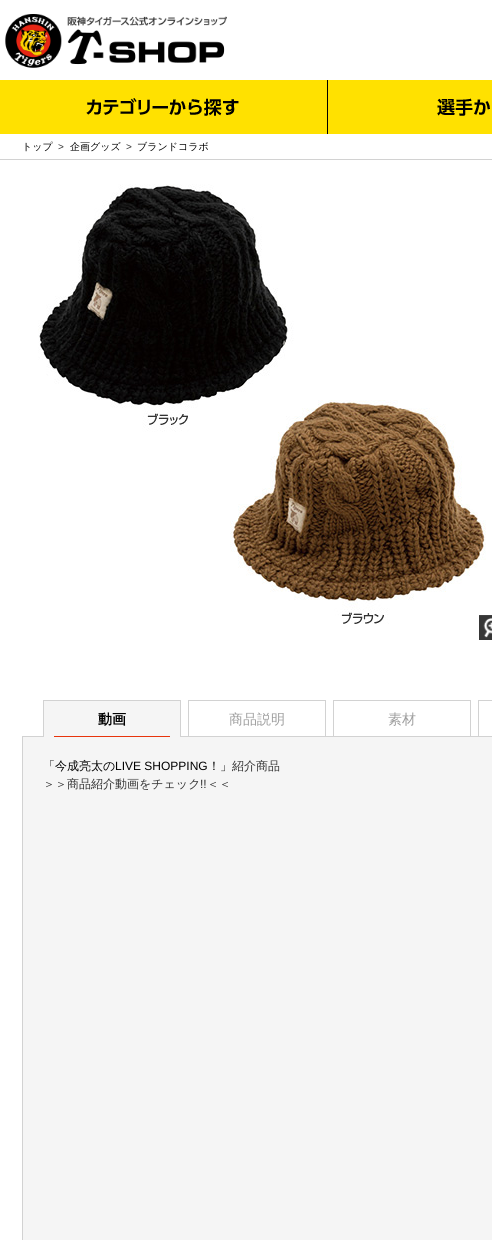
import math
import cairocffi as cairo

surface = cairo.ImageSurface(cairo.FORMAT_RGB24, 492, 1240)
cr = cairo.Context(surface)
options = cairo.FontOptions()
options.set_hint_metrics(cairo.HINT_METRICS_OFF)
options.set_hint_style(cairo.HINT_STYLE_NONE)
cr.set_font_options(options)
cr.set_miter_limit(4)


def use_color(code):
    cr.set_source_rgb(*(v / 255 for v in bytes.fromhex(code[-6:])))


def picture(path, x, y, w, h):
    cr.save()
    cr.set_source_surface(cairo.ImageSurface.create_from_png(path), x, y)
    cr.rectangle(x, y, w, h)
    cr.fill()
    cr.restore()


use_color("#ffffff")
cr.paint()
picture("img1.png", 5, 14, 222, 54)
use_color("#ffe100")
cr.rectangle(0, 80, 492, 54)
cr.fill()
picture("img2.png", 86, 98, 153, 18)
picture("img3.png", 437, 98, 53, 18)
use_color("#000000")
cr.rectangle(327, 80, 1, 54)
cr.fill()
use_color("#d2d2d2")
cr.rectangle(0, 159, 492, 1)
cr.fill()
cr.select_font_face("WenQuanYi Zen Hei Medium")
cr.set_font_size(10)
use_color("#000000")
cr.move_to(22, 150)
cr.show_text("トップ")
cr.select_font_face("Liberation Sans")
use_color("#333333")
cr.move_to(58, 150)
cr.show_text(">")
cr.select_font_face("WenQuanYi Zen Hei Medium")
use_color("#000000")
cr.move_to(70, 150)
cr.show_text("企画グッズ")
cr.select_font_face("Liberation Sans")
use_color("#333333")
cr.move_to(126, 150)
cr.show_text(">")
cr.select_font_face("WenQuanYi Zen Hei Medium")
use_color("#000000")
cr.move_to(137, 150)
cr.show_text("ブランドコラボ")
picture("img4.png", 38, 184, 448, 440)
picture("img5.png", 479, 615, 13, 25)
use_color("#f5f5f5")
cr.rectangle(22.5, 736.5, 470, 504)
cr.fill_preserve()
use_color("#d2d2d2")
cr.set_line_width(1)
cr.stroke()
use_color("#f5f5f5")
cr.rectangle(44, 701, 136, 36)
cr.fill()
use_color("#d2d2d2")
cr.rectangle(43, 700, 138, 1)
cr.fill()
cr.rectangle(180, 700, 1, 37)
cr.fill()
cr.rectangle(43, 700, 1, 37)
cr.fill()
use_color("#e8340c")
cr.rectangle(54, 736, 116, 1)
cr.fill()
cr.select_font_face("WenQuanYi Zen Hei", cairo.FONT_SLANT_NORMAL, cairo.FONT_WEIGHT_BOLD)
cr.set_font_size(14)
use_color("#000000")
cr.move_to(98, 724)
cr.show_text("動画")
use_color("#d2d2d2")
cr.rectangle(188, 700, 138, 1)
cr.fill()
cr.rectangle(325, 700, 1, 37)
cr.fill()
cr.rectangle(188, 700, 1, 37)
cr.fill()
cr.select_font_face("WenQuanYi Zen Hei Medium")
use_color("#9e9e9e")
cr.move_to(229, 724)
cr.show_text("商品説明")
use_color("#d2d2d2")
cr.rectangle(333, 700, 138, 1)
cr.fill()
cr.rectangle(470, 700, 1, 37)
cr.fill()
cr.rectangle(333, 700, 1, 37)
cr.fill()
use_color("#9e9e9e")
cr.move_to(388, 724)
cr.show_text("素材")
use_color("#d2d2d2")
cr.rectangle(478, 700, 14, 1)
cr.fill()
cr.rectangle(478, 700, 1, 37)
cr.fill()
cr.set_font_size(12)
use_color("#000000")
cr.move_to(43, 770)
cr.show_text("「今成亮太の")
cr.select_font_face("Liberation Sans")
cr.move_to(115, 770)
cr.show_text("LIVE SHOPPING")
cr.select_font_face("WenQuanYi Zen Hei Medium")
cr.move_to(208, 770)
cr.show_text("！」")
use_color("#333333")
cr.move_to(232, 770)
cr.show_text("紹介商品")
cr.move_to(43, 788)
cr.show_text("＞＞商品紹介動画をチェック")
cr.select_font_face("Liberation Sans")
cr.move_to(200, 788)
cr.show_text("!!")
cr.select_font_face("WenQuanYi Zen Hei Medium")
cr.move_to(207, 788)
cr.show_text("＜＜")
surface.write_to_png("result.png")
